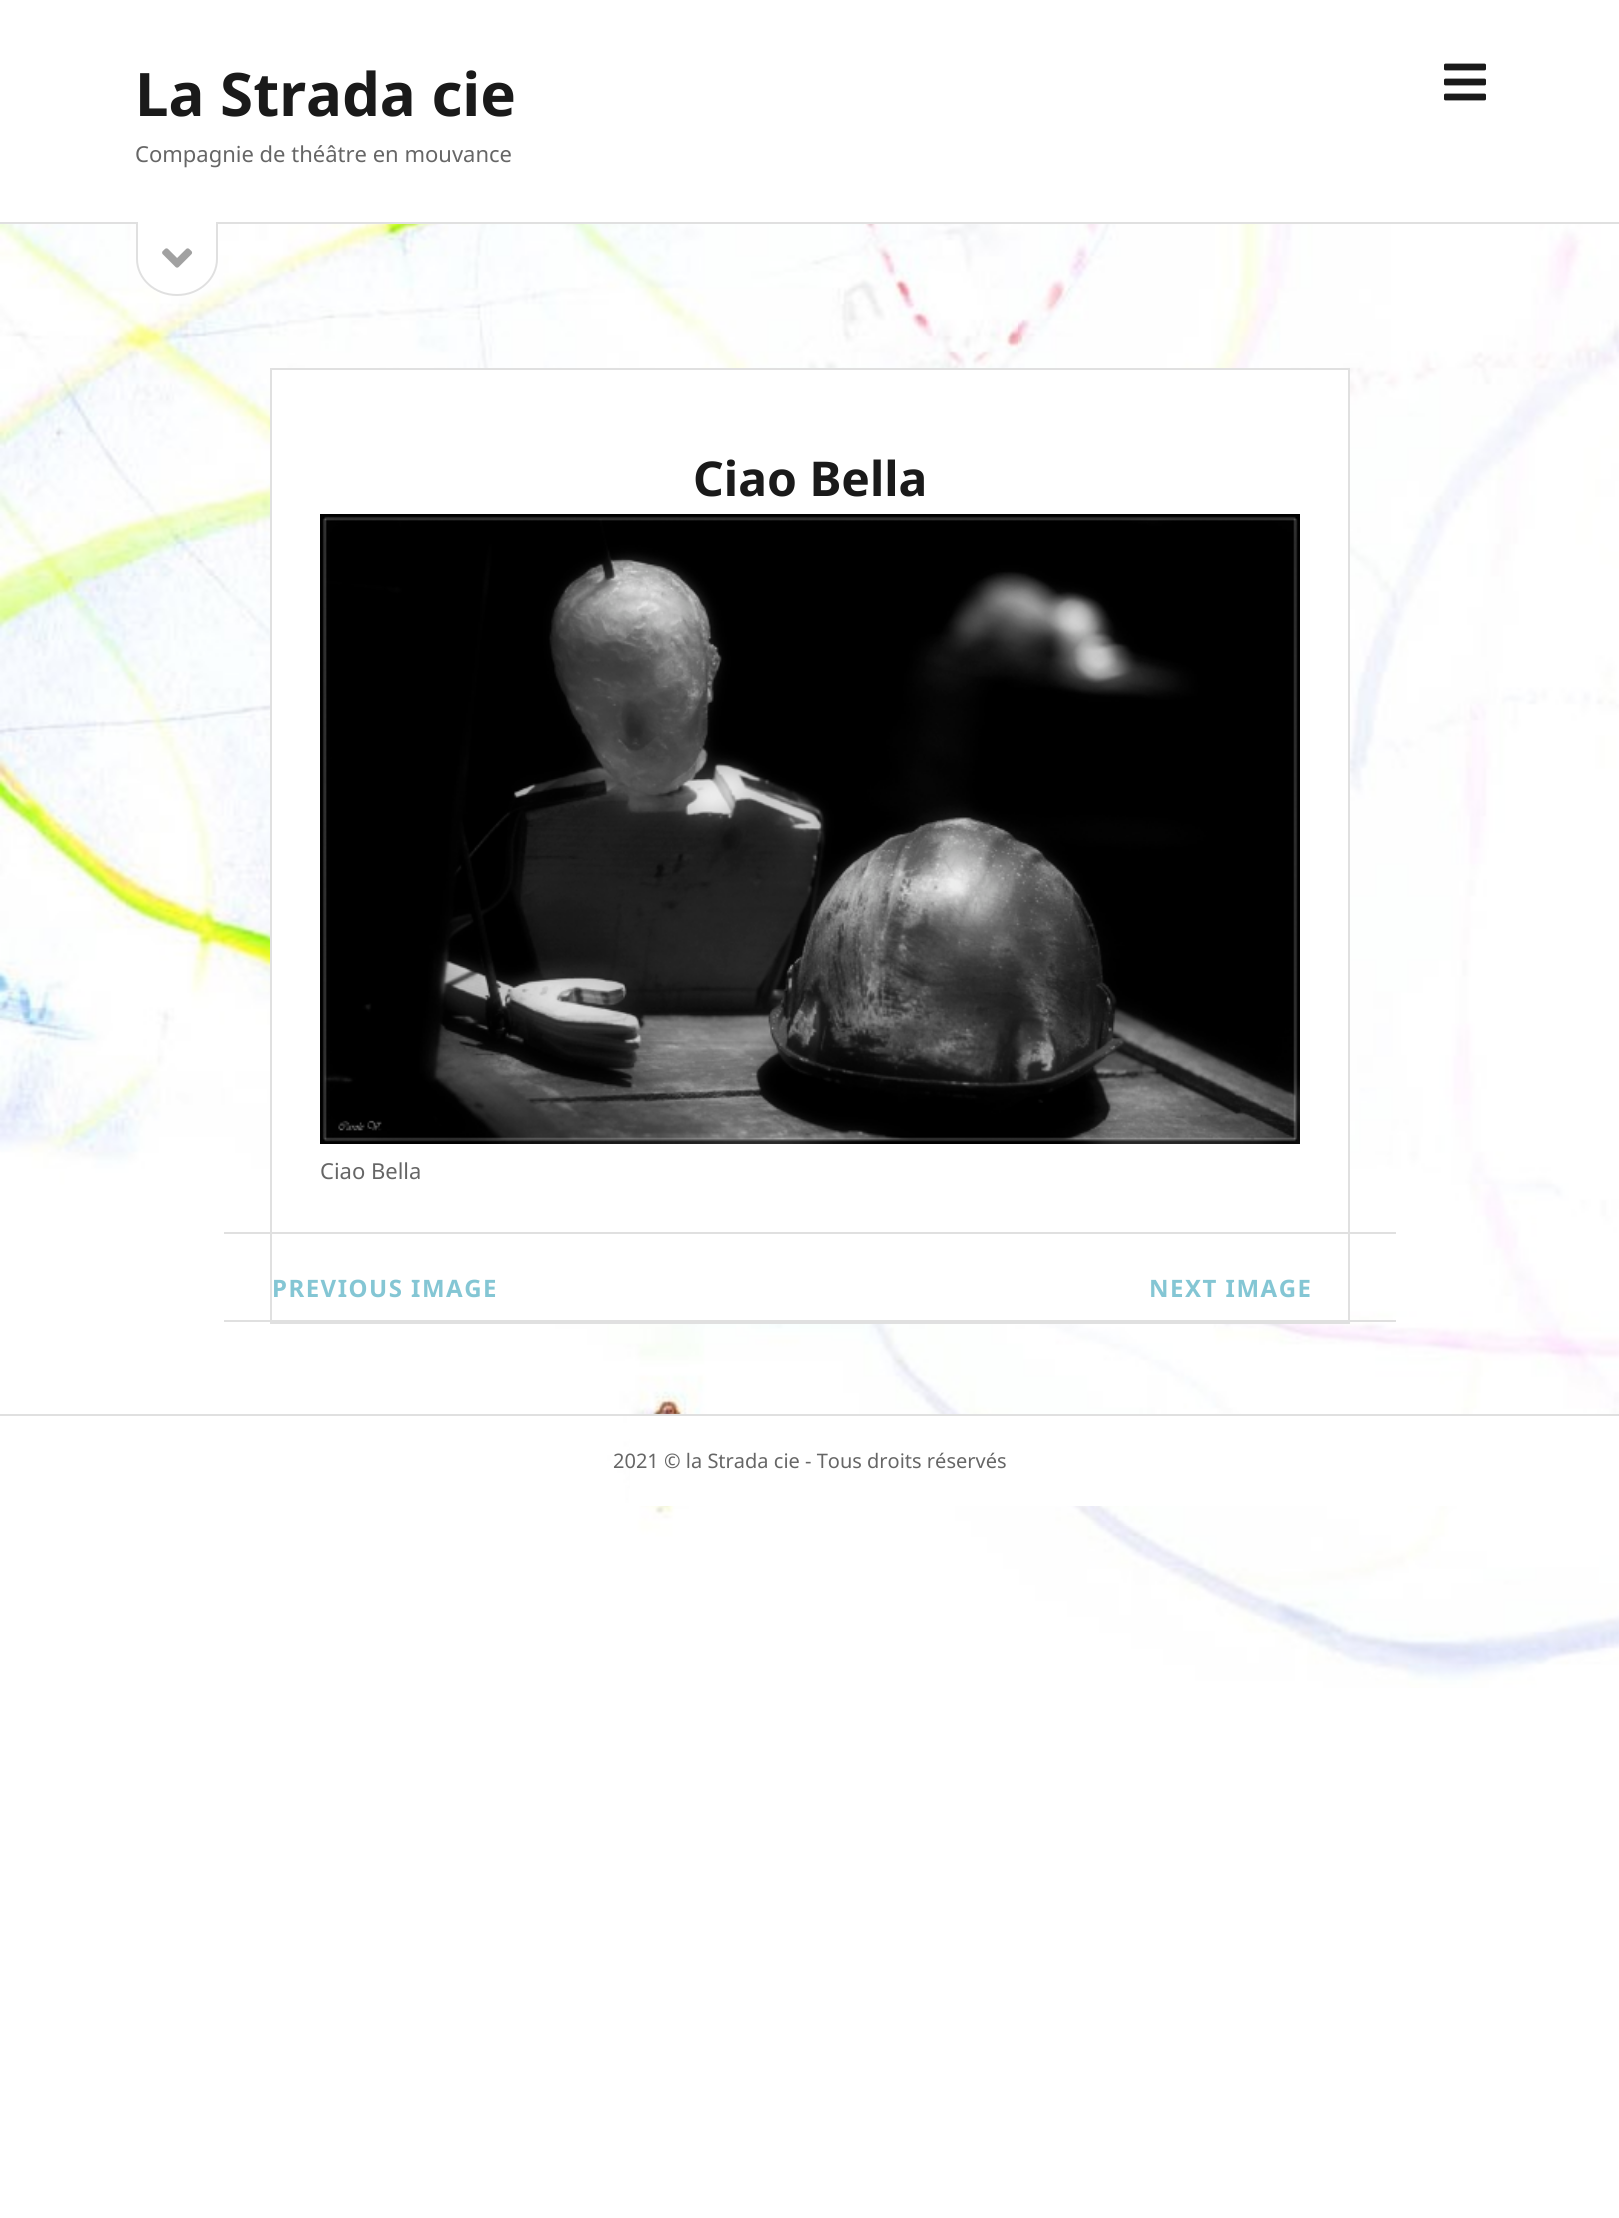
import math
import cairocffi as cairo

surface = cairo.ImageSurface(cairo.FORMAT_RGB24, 1619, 2218)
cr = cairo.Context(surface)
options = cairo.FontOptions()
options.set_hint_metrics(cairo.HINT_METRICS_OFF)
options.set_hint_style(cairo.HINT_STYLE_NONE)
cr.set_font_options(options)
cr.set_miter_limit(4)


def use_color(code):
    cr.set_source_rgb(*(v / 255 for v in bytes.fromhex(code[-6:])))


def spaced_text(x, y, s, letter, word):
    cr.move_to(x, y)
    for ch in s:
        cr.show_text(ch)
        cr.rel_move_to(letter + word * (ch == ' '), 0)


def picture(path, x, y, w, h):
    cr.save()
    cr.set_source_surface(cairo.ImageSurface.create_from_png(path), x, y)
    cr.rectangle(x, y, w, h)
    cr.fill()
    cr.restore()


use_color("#ffffff")
cr.paint()
picture("img1.png", 0, 224, 1619, 1464)
use_color("#e0e0e0")
cr.rectangle(0, 222, 1619, 2)
cr.fill()
cr.select_font_face("Noto Sans", cairo.FONT_SLANT_NORMAL, cairo.FONT_WEIGHT_BOLD)
cr.set_font_size(60)
use_color("#1a1a1a")
cr.move_to(135, 116)
cr.show_text("La Strada cie")
cr.select_font_face("Noto Sans")
cr.set_font_size(22)
use_color("#666666")
cr.move_to(135, 162)
cr.show_text("Compagnie de théâtre en mouvance")
picture("img2.png", 1444, 63, 42, 38)
use_color("#ffffff")
cr.new_path()
cr.move_to(136, 222)
cr.line_to(218, 222)
cr.line_to(218, 259)
cr.curve_to(218, 279, 200, 296, 177, 296)
cr.curve_to(154, 296, 136, 279, 136, 259)
cr.close_path()
cr.fill()
use_color("#e0e0e0")
cr.set_fill_rule(cairo.FILL_RULE_EVEN_ODD)
cr.new_path()
cr.move_to(136, 222)
cr.line_to(218, 222)
cr.line_to(218, 259)
cr.curve_to(218, 279, 200, 296, 177, 296)
cr.curve_to(154, 296, 136, 279, 136, 259)
cr.close_path()
cr.move_to(138, 222)
cr.line_to(216, 222)
cr.line_to(216, 259)
cr.curve_to(216, 278, 199, 294, 177, 294)
cr.curve_to(155, 294, 138, 278, 138, 259)
cr.close_path()
cr.fill()
picture("img3.png", 162, 248, 31, 20)
use_color("#ffffff")
cr.rectangle(272, 370, 1076, 950)
cr.fill()
cr.rectangle(271, 369, 1078, 954)
use_color("#e0e0e0")
cr.stroke()
cr.select_font_face("Noto Sans", cairo.FONT_SLANT_NORMAL, cairo.FONT_WEIGHT_BOLD)
cr.set_font_size(48)
use_color("#1a1a1a")
cr.move_to(693, 496)
cr.show_text("Ciao Bella")
picture("img4.png", 320, 514, 980, 630)
cr.select_font_face("Noto Sans")
cr.set_font_size(22)
use_color("#666666")
cr.move_to(320, 1179)
cr.show_text("Ciao Bella")
use_color("#e0e0e0")
cr.rectangle(224, 1232, 1172, 2)
cr.fill()
cr.select_font_face("Noto Sans", cairo.FONT_SLANT_NORMAL, cairo.FONT_WEIGHT_BOLD)
cr.set_font_size(24)
use_color("#84c6d4")
spaced_text(272, 1297, "PREVIOUS IMAGE", 1.5, 0)
spaced_text(1149, 1297, "NEXT IMAGE", 1.5, 0)
use_color("#e0e0e0")
cr.rectangle(224, 1320, 1172, 2)
cr.fill()
use_color("#ffffff")
cr.rectangle(630, 1416, 989, 90)
cr.fill()
use_color("#e0e0e0")
cr.rectangle(0, 1414, 1619, 2)
cr.fill()
cr.select_font_face("Noto Sans")
cr.set_font_size(20)
use_color("#666666")
cr.move_to(613, 1468)
cr.show_text("2021 © la Strada cie - Tous droits réservés")
surface.write_to_png("result.png")
